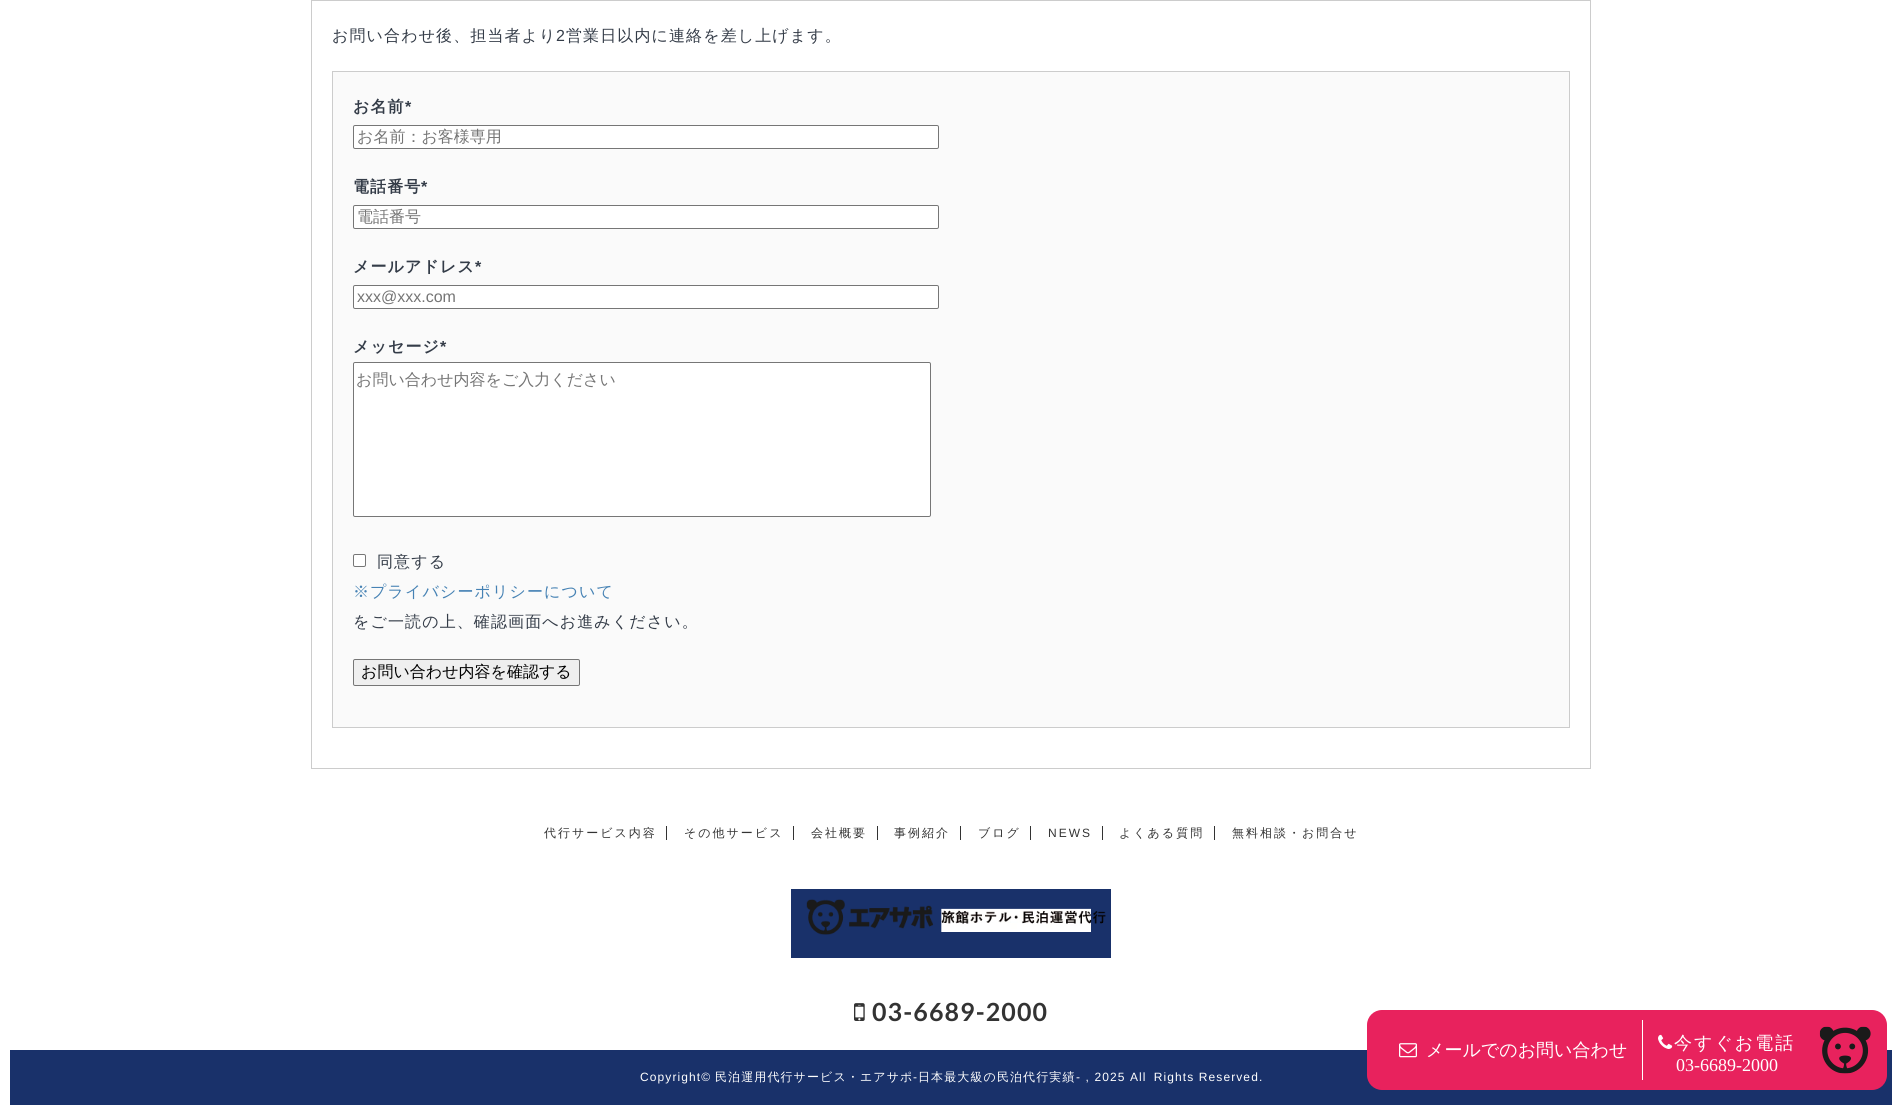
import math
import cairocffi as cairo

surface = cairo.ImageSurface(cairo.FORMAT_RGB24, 1902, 1105)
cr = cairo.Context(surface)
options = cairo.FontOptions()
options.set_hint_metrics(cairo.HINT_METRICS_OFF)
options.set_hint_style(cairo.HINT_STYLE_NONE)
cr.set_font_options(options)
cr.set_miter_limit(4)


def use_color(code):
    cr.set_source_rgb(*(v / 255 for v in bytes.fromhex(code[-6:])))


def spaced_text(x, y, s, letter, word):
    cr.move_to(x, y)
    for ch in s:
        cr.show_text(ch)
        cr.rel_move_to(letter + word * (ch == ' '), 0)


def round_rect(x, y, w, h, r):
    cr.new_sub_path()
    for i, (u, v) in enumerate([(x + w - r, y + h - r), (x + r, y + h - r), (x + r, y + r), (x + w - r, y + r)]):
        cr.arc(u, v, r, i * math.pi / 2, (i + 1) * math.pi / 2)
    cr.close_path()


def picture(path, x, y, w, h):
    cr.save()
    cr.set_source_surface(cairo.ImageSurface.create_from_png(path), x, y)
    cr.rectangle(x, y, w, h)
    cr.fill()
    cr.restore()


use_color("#ffffff")
cr.paint()
cr.rectangle(311.5, 0.5, 1279, 768)
use_color("#cccccc")
cr.set_line_width(1)
cr.stroke()
cr.select_font_face("WenQuanYi Zen Hei Medium")
cr.set_font_size(16)
use_color("#343c48")
spaced_text(332, 41, "お問い合わせ後、担当者より", 1.1, 0)
cr.select_font_face("Liberation Sans")
spaced_text(556, 41, "2", 1.1, 0)
cr.select_font_face("WenQuanYi Zen Hei Medium")
spaced_text(566, 41, "営業日以内に連絡を差し上げます。", 1.1, 0)
use_color("#fafafa")
cr.rectangle(332.5, 71.5, 1237, 656)
cr.fill_preserve()
use_color("#cccccc")
cr.stroke()
cr.select_font_face("WenQuanYi Zen Hei", cairo.FONT_SLANT_NORMAL, cairo.FONT_WEIGHT_BOLD)
use_color("#343c48")
spaced_text(353, 112, "お名前", 1.1, 0)
cr.select_font_face("Liberation Sans", cairo.FONT_SLANT_NORMAL, cairo.FONT_WEIGHT_BOLD)
spaced_text(405, 112, "*", 1.1, 0)
use_color("#ffffff")
round_rect(353.5, 125.5, 585, 23, 1.5)
cr.fill_preserve()
use_color("#767676")
cr.stroke()
cr.select_font_face("WenQuanYi Zen Hei Medium")
use_color("#757575")
cr.move_to(357, 142)
cr.show_text("お名前：お客様専用")
cr.select_font_face("WenQuanYi Zen Hei", cairo.FONT_SLANT_NORMAL, cairo.FONT_WEIGHT_BOLD)
use_color("#343c48")
spaced_text(353, 192, "電話番号", 1.1, 0)
cr.select_font_face("Liberation Sans", cairo.FONT_SLANT_NORMAL, cairo.FONT_WEIGHT_BOLD)
spaced_text(421, 192, "*", 1.1, 0)
use_color("#ffffff")
round_rect(353.5, 205.5, 585, 23, 1.5)
cr.fill_preserve()
use_color("#767676")
cr.stroke()
cr.select_font_face("WenQuanYi Zen Hei Medium")
use_color("#757575")
cr.move_to(357, 222)
cr.show_text("電話番号")
cr.select_font_face("WenQuanYi Zen Hei", cairo.FONT_SLANT_NORMAL, cairo.FONT_WEIGHT_BOLD)
use_color("#343c48")
spaced_text(353, 272, "メールアドレス", 1.1, 0)
cr.select_font_face("Liberation Sans", cairo.FONT_SLANT_NORMAL, cairo.FONT_WEIGHT_BOLD)
spaced_text(475, 272, "*", 1.1, 0)
use_color("#ffffff")
round_rect(353.5, 285.5, 585, 23, 1.5)
cr.fill_preserve()
use_color("#767676")
cr.stroke()
cr.select_font_face("Liberation Sans")
use_color("#757575")
cr.move_to(357, 302)
cr.show_text("xxx@xxx.com")
cr.select_font_face("WenQuanYi Zen Hei", cairo.FONT_SLANT_NORMAL, cairo.FONT_WEIGHT_BOLD)
use_color("#343c48")
spaced_text(353, 352, "メッセージ", 1.1, 0)
cr.select_font_face("Liberation Sans", cairo.FONT_SLANT_NORMAL, cairo.FONT_WEIGHT_BOLD)
spaced_text(440, 352, "*", 1.1, 0)
use_color("#ffffff")
round_rect(353.5, 362.5, 577, 154, 1.5)
cr.fill_preserve()
use_color("#767676")
cr.stroke()
cr.select_font_face("WenQuanYi Zen Hei Medium")
use_color("#757575")
cr.move_to(356, 385)
cr.show_text("お問い合わせ内容をご入力ください")
use_color("#ffffff")
round_rect(353.5, 554.5, 12, 12, 1.5)
cr.fill_preserve()
use_color("#767676")
cr.stroke()
use_color("#343c48")
spaced_text(377, 567, "同意する", 1.1, 0)
use_color("#4682b4")
spaced_text(353, 597, "※プライバシーポリシーについて", 1.1, 0)
use_color("#343c48")
spaced_text(353, 627, "をご一読の上、確認画面へお進みください。", 1.1, 0)
use_color("#efefef")
round_rect(353.5, 659.5, 226, 26, 1.5)
cr.fill_preserve()
use_color("#767676")
cr.stroke()
use_color("#000000")
cr.move_to(361, 677)
cr.show_text("お問い合わせ内容を確認する")
use_color("#19316a")
cr.rectangle(10, 1050, 1882, 55)
cr.fill()
use_color("#e8225d")
round_rect(1367, 1010, 520, 80, 15)
cr.fill()
picture("img1.png", 1819, 1026, 52, 48)
use_color("#ffffff")
cr.rectangle(1642, 1020, 1, 60)
cr.fill()
picture("img2.png", 1399, 1043, 18, 15)
cr.set_font_size(18)
cr.move_to(1426, 1056)
cr.show_text("メールでのお問い合わせ")
picture("img3.png", 1658, 1034, 15, 15)
spaced_text(1674, 1049, "今すぐお電話", 2, 0)
cr.select_font_face("Liberation Serif")
cr.move_to(1676, 1071)
cr.show_text("03-6689-2000")
cr.select_font_face("WenQuanYi Zen Hei Medium")
cr.set_font_size(12)
use_color("#333333")
spaced_text(544, 837, "代行サービス内容", 2, 0)
cr.rectangle(666, 826, 1, 14)
cr.fill()
spaced_text(684, 837, "その他サービス", 2, 0)
cr.rectangle(793, 826, 1, 14)
cr.fill()
spaced_text(811, 837, "会社概要", 2, 0)
cr.rectangle(877, 826, 1, 14)
cr.fill()
spaced_text(894, 837, "事例紹介", 2, 0)
cr.rectangle(960, 826, 1, 14)
cr.fill()
spaced_text(978, 837, "ブログ", 2, 0)
cr.rectangle(1030, 826, 1, 14)
cr.fill()
cr.select_font_face("Liberation Sans")
spaced_text(1048, 837, "NEWS", 2, 0)
cr.rectangle(1102, 826, 1, 14)
cr.fill()
cr.select_font_face("WenQuanYi Zen Hei Medium")
spaced_text(1119, 837, "よくある質問", 2, 0)
cr.rectangle(1214, 826, 1, 14)
cr.fill()
spaced_text(1232, 837, "無料相談・お問合せ", 2, 0)
use_color("#19316a")
cr.rectangle(791, 889, 320, 69)
cr.fill()
picture("img4.png", 806, 899, 300, 36)
picture("img5.png", 854, 1003, 11, 18)
cr.select_font_face("Lato", cairo.FONT_SLANT_NORMAL, cairo.FONT_WEIGHT_BOLD)
cr.set_font_size(25)
use_color("#333333")
spaced_text(872, 1021, "03-6689-2000", 1.1, 0)
cr.select_font_face("Liberation Sans")
cr.set_font_size(12)
use_color("#ffffff")
spaced_text(640, 1081, "Copyright©", 1.1, 0)
cr.select_font_face("WenQuanYi Zen Hei Medium")
spaced_text(715, 1081, "民泊運用代行サービス・エアサポ", 1.1, 0)
cr.select_font_face("Liberation Sans")
spaced_text(913, 1081, "-", 1.1, 0)
cr.select_font_face("WenQuanYi Zen Hei Medium")
spaced_text(918, 1081, "日本最大級の民泊代行実績", 1.1, 0)
cr.select_font_face("Liberation Sans")
spaced_text(1076, 1081, "- , 2025 All Rights Reserved.", 1.1, 0)
surface.write_to_png("result.png")
